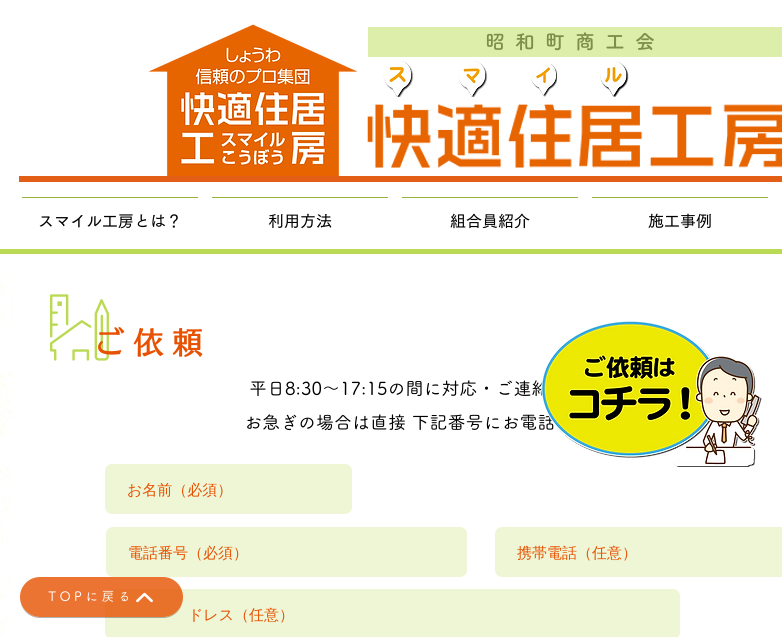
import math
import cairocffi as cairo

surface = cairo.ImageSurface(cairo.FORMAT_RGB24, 782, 637)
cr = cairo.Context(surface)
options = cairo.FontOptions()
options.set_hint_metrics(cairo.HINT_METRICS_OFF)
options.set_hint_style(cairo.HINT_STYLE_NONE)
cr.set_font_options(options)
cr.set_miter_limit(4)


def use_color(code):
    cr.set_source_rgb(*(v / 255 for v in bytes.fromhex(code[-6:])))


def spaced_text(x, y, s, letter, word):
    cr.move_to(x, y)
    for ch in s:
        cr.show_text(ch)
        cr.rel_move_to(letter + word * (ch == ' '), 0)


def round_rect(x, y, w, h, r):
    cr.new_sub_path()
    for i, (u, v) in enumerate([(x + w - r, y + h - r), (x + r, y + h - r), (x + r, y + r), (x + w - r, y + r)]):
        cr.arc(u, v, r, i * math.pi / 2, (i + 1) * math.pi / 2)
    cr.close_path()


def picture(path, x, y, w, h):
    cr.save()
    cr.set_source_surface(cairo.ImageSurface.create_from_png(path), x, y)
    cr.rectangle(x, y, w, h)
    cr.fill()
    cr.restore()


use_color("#f5ffd4")
cr.paint()
use_color("#ffffff")
cr.rectangle(0, 0, 782, 249)
cr.fill()
use_color("#ddedaa")
cr.rectangle(368, 27, 414, 30)
cr.fill()
use_color("#bada55")
cr.rectangle(0, 249, 782, 5)
cr.fill()
picture("img1.png", 148, 24, 210, 152)
picture("img2.png", 383, 61, 31, 36)
picture("img3.png", 458, 61, 30, 36)
picture("img4.png", 531, 62, 26, 35)
picture("img5.png", 600, 61, 29, 36)
picture("img6.png", 367, 104, 415, 64)
use_color("#e35e17")
cr.rectangle(19, 176, 763, 6)
cr.fill()
cr.select_font_face("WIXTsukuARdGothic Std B", cairo.FONT_SLANT_NORMAL, cairo.FONT_WEIGHT_BOLD)
cr.set_font_size(20)
use_color("#7d8d4b")
spaced_text(485, 49, "昭和町商工会", 10, 0)
use_color("#96b33d")
cr.rectangle(22, 197, 176, 1)
cr.fill()
cr.select_font_face("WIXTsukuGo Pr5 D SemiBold")
cr.set_font_size(16)
use_color("#000000")
cr.move_to(38, 227)
cr.show_text("スマイル工房とは？")
use_color("#96b33d")
cr.rectangle(212, 197, 176, 1)
cr.fill()
use_color("#000000")
cr.move_to(268, 227)
cr.show_text("利用方法")
use_color("#96b33d")
cr.rectangle(402, 197, 176, 1)
cr.fill()
use_color("#000000")
cr.move_to(450, 227)
cr.show_text("組合員紹介")
use_color("#96b33d")
cr.rectangle(592, 197, 176, 1)
cr.fill()
use_color("#000000")
cr.move_to(648, 227)
cr.show_text("施工事例")
picture("img8.png", 0, 254, 782, 383)
use_color("#eef6d5")
round_rect(105, 589, 575, 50, 7)
cr.fill()
cr.set_source_rgba(0.055, 0.094, 0.129, 0.33)
cr.new_path()
cr.move_to(20, 598)
cr.curve_to(20, 609, 29, 618, 40, 618)
cr.line_to(163, 618)
cr.curve_to(174, 618, 183, 609, 183, 598)
cr.curve_to(183, 608, 174, 617, 163, 617)
cr.line_to(40, 617)
cr.curve_to(29, 617, 20, 608, 20, 598)
cr.close_path()
cr.fill()
cr.set_source_rgba(0.906, 0.318, 0.004, 0.8)
round_rect(20, 577, 163, 40, 20)
cr.fill()
cr.select_font_face("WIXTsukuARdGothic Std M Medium")
cr.set_font_size(13)
use_color("#ffffff")
spaced_text(48, 601, "TOPに戻る", 3.25, 0)
picture("img7.png", 136, 592, 17, 11)
picture("img9.png", 50, 294, 59, 67)
cr.select_font_face("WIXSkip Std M", cairo.FONT_SLANT_NORMAL, cairo.FONT_WEIGHT_BOLD)
cr.set_font_size(30)
use_color("#e75101")
spaced_text(94, 354, "ご依頼", 9, 0)
cr.select_font_face("WIXTsukuARdGothic Std M Medium")
cr.set_font_size(18)
use_color("#000000")
cr.move_to(249, 395)
cr.show_text("平日8:30～17:15の間に対応・ご連絡")
cr.move_to(244, 429)
cr.show_text("お急ぎの場合は直接 下記番号にお電話")
use_color("#eef6d5")
round_rect(105, 464, 247, 50, 7)
cr.fill()
cr.select_font_face("WenQuanYi Zen Hei Medium")
cr.set_font_size(15)
use_color("#e75101")
cr.move_to(127, 495)
cr.show_text("お名前（必須）")
use_color("#eef6d5")
round_rect(106, 527, 361, 50, 7)
cr.fill()
use_color("#e75101")
cr.move_to(128, 558)
cr.show_text("電話番号（必須）")
use_color("#eef6d5")
round_rect(495, 527, 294, 50, 7)
cr.fill()
use_color("#e75101")
cr.move_to(517, 558)
cr.show_text("携帯電話（任意）")
cr.move_to(188, 620)
cr.show_text("ドレス（任意）")
picture("img10.png", 541, 321, 221, 146)
surface.write_to_png("result.png")
